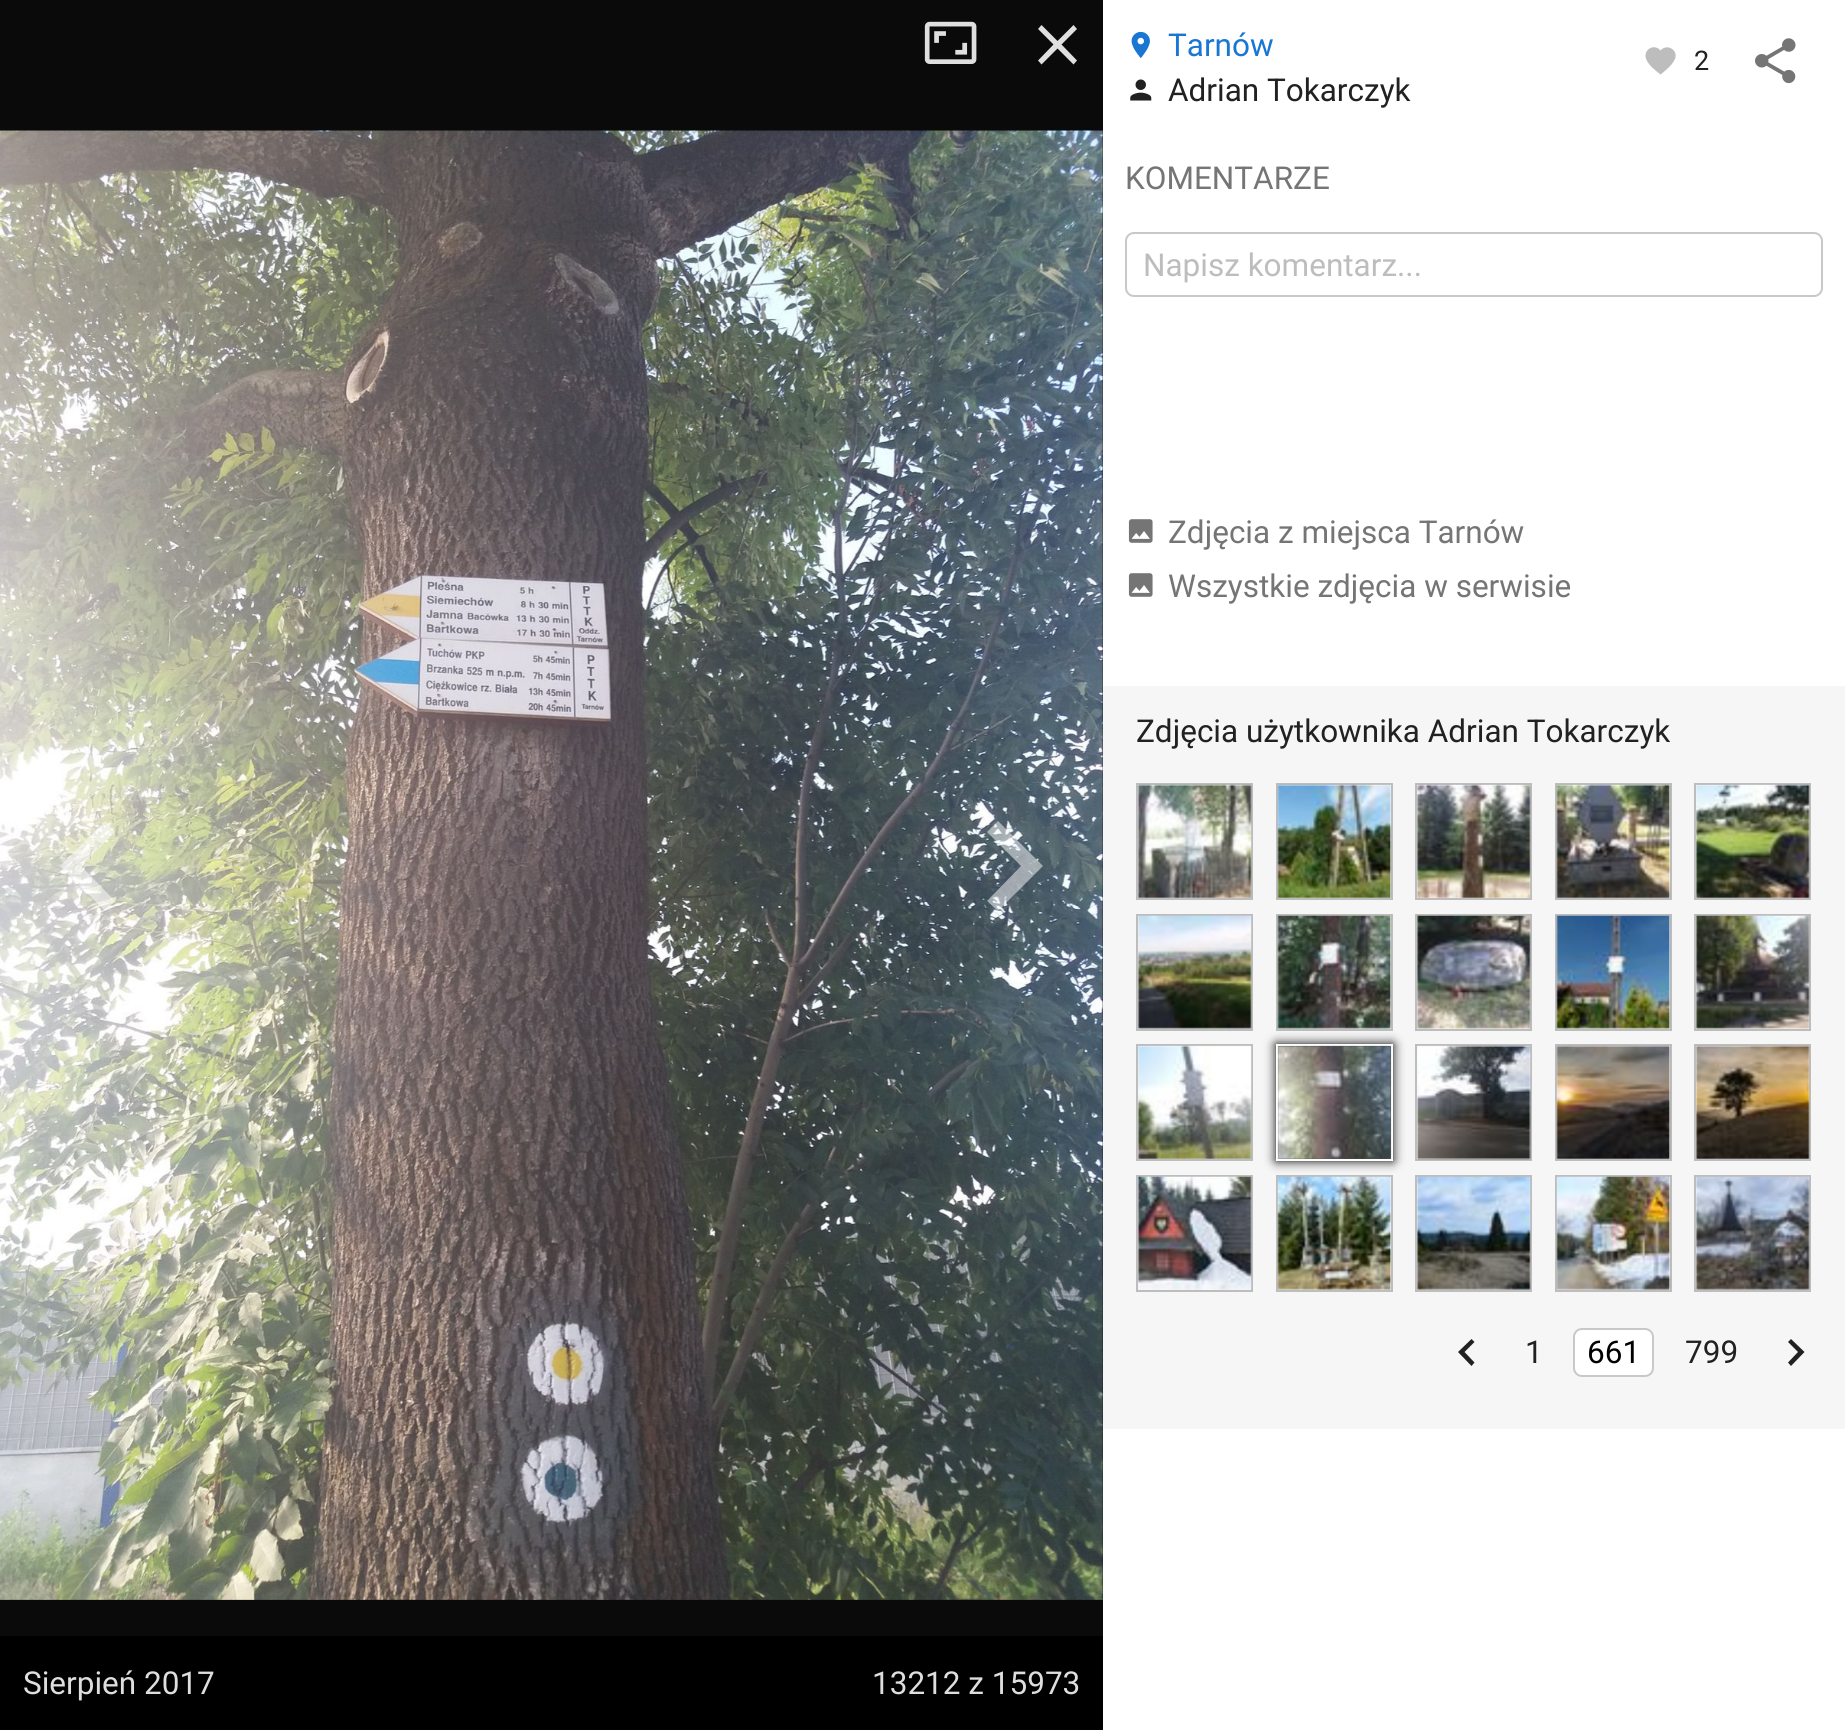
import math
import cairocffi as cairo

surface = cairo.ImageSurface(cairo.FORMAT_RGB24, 1845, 1730)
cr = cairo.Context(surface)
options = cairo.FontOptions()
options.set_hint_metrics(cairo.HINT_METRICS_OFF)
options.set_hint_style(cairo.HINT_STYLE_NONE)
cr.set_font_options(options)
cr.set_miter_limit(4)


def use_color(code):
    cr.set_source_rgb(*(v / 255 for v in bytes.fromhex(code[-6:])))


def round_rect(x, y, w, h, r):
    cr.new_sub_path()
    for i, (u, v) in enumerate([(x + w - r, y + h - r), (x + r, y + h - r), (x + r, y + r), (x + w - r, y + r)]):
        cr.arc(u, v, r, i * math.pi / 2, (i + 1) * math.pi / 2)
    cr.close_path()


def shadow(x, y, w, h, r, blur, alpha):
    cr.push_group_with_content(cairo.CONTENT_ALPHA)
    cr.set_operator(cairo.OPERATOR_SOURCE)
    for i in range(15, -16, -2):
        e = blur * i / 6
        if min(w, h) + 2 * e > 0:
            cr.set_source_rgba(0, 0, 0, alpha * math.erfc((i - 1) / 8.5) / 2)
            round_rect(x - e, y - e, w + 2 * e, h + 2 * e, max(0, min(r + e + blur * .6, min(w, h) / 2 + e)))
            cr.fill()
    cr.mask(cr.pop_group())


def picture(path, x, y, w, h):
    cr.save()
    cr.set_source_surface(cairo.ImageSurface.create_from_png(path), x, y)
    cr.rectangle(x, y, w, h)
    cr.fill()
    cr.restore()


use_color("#0a0a0a")
cr.paint()
use_color("#ffffff")
cr.rectangle(1103, 0, 742, 1730)
cr.fill()
picture("img1.png", 1131, 31, 19, 27)
cr.select_font_face("Roboto")
cr.set_font_size(31.5)
use_color("#1976d2")
cr.move_to(1168, 56)
cr.show_text("Tarnów")
picture("img2.png", 1130, 79, 22, 22)
use_color("#212121")
cr.move_to(1168, 101)
cr.show_text("Adrian Tokarczyk")
use_color("#bdbdbd")
cr.new_path()
cr.move_to(1660.5, 74.5)
cr.curve_to(1656, 71, 1649, 65.5, 1646.5, 60)
cr.curve_to(1642, 50.5, 1653.5, 42.5, 1660.5, 50.5)
cr.curve_to(1667, 43, 1678.5, 50, 1675, 59)
cr.curve_to(1672, 65.5, 1665.5, 70.5, 1660.5, 74.5)
cr.close_path()
cr.fill()
cr.set_font_size(27)
use_color("#212121")
cr.move_to(1694, 70)
cr.show_text("2")
picture("img3.png", 1755, 38, 41, 46)
cr.set_font_size(31.5)
use_color("#757575")
cr.move_to(1125, 189)
cr.show_text("KOMENTARZE")
round_rect(1126, 233, 696, 63, 8)
use_color("#c8c8c8")
cr.stroke()
use_color("#bdbdbd")
cr.move_to(1143, 276)
cr.show_text("Napisz komentarz...")
picture("img4.png", 1128, 519, 25, 24)
use_color("#757575")
cr.move_to(1168, 543)
cr.show_text("Zdjęcia z miejsca Tarnów")
picture("img4.png", 1128, 573, 25, 24)
cr.move_to(1168, 597)
cr.show_text("Wszystkie zdjęcia w serwisie")
use_color("#f6f6f6")
cr.rectangle(1103, 686, 742, 743)
cr.fill()
use_color("#212121")
cr.move_to(1136, 742)
cr.show_text("Zdjęcia użytkownika Adrian Tokarczyk")
cr.rectangle(1137, 784, 115, 115)
use_color("#bdbdbd")
cr.stroke()
picture("img5.png", 1138, 784, 114, 114)
cr.rectangle(1277, 784, 115, 115)
cr.stroke()
picture("img6.png", 1277, 784, 115, 114)
cr.rectangle(1416, 784, 115, 115)
cr.stroke()
picture("img7.png", 1417, 784, 114, 114)
cr.rectangle(1556, 784, 115, 115)
cr.stroke()
picture("img8.png", 1556, 784, 115, 114)
cr.rectangle(1695, 784, 115, 115)
cr.stroke()
picture("img9.png", 1696, 784, 114, 114)
cr.rectangle(1137, 915, 115, 115)
cr.stroke()
picture("img10.png", 1138, 915, 114, 114)
cr.rectangle(1277, 915, 115, 115)
cr.stroke()
picture("img11.png", 1277, 915, 115, 114)
cr.rectangle(1416, 915, 115, 115)
cr.stroke()
picture("img12.png", 1417, 915, 114, 114)
cr.rectangle(1556, 915, 115, 115)
cr.stroke()
picture("img13.png", 1556, 915, 115, 114)
cr.rectangle(1695, 915, 115, 115)
cr.stroke()
picture("img14.png", 1696, 915, 114, 114)
cr.rectangle(1137, 1045, 115, 115)
cr.stroke()
picture("img15.png", 1138, 1045, 114, 114)
use_color("#000000")
shadow(1276, 1044, 117, 117, 0, 5.5, 1)
cr.rectangle(1277, 1045, 115, 115)
use_color("#ffffff")
cr.stroke()
picture("img16.png", 1277, 1045, 115, 114)
cr.rectangle(1416, 1045, 115, 115)
use_color("#bdbdbd")
cr.stroke()
picture("img17.png", 1417, 1045, 114, 115)
cr.rectangle(1556, 1045, 115, 115)
cr.stroke()
picture("img18.png", 1556, 1045, 115, 114)
cr.rectangle(1695, 1045, 115, 115)
cr.stroke()
picture("img19.png", 1696, 1045, 114, 114)
cr.rectangle(1137, 1176, 115, 115)
cr.stroke()
picture("img20.png", 1138, 1176, 114, 114)
cr.rectangle(1277, 1176, 115, 115)
cr.stroke()
picture("img21.png", 1277, 1176, 114, 114)
cr.rectangle(1416, 1176, 115, 115)
cr.stroke()
picture("img22.png", 1417, 1176, 114, 114)
cr.rectangle(1556, 1176, 115, 115)
cr.stroke()
picture("img23.png", 1556, 1176, 115, 114)
cr.rectangle(1695, 1176, 115, 115)
cr.stroke()
picture("img24.png", 1696, 1176, 114, 114)
use_color("#212121")
cr.new_path()
cr.move_to(1474.5, 1362.5)
cr.line_to(1471.5, 1366)
cr.line_to(1458, 1352)
cr.line_to(1471.5, 1339)
cr.line_to(1474.5, 1342)
cr.line_to(1464.5, 1352)
cr.close_path()
cr.fill()
cr.move_to(1525, 1363)
cr.show_text("1")
use_color("#ffffff")
round_rect(1574, 1329, 79, 47, 8)
cr.fill_preserve()
use_color("#c8c8c8")
cr.stroke()
use_color("#000000")
cr.move_to(1587, 1363)
cr.show_text("661")
use_color("#212121")
cr.move_to(1685, 1363)
cr.show_text("799")
cr.new_path()
cr.move_to(1788, 1362.5)
cr.line_to(1798, 1352)
cr.line_to(1788, 1342)
cr.line_to(1791, 1339)
cr.line_to(1804.5, 1352)
cr.line_to(1791, 1366)
cr.close_path()
cr.fill()
picture("img25.png", 924, 21, 53, 43)
use_color("#dfdfdf")
cr.new_path()
cr.move_to(1077, 29)
cr.line_to(1073.5, 25)
cr.line_to(1057.5, 41)
cr.line_to(1041.5, 25)
cr.line_to(1038, 29)
cr.line_to(1053.5, 44.5)
cr.line_to(1038, 60.5)
cr.line_to(1041.5, 64.5)
cr.line_to(1057.5, 48.5)
cr.line_to(1073.5, 64.5)
cr.line_to(1077, 60.5)
cr.line_to(1061.5, 44.5)
cr.close_path()
cr.fill()
picture("img26.png", 0, 130, 1103, 1470)
cr.set_source_rgba(1, 1, 1, 0.5)
cr.new_path()
cr.move_to(115, 832)
cr.line_to(105, 821)
cr.line_to(60, 866)
cr.line_to(105, 911)
cr.line_to(115, 901)
cr.line_to(81, 866)
cr.close_path()
cr.fill()
cr.new_path()
cr.move_to(998, 821)
cr.line_to(987, 832)
cr.line_to(1021, 866)
cr.line_to(987, 901)
cr.line_to(998, 911)
cr.line_to(1043, 866)
cr.close_path()
cr.fill()
use_color("#000000")
cr.rectangle(0, 1636, 1103, 94)
cr.fill()
use_color("#dedede")
cr.move_to(23, 1694)
cr.show_text("Sierpień 2017")
cr.move_to(872, 1694)
cr.show_text("13212 z 15973")
surface.write_to_png("result.png")
